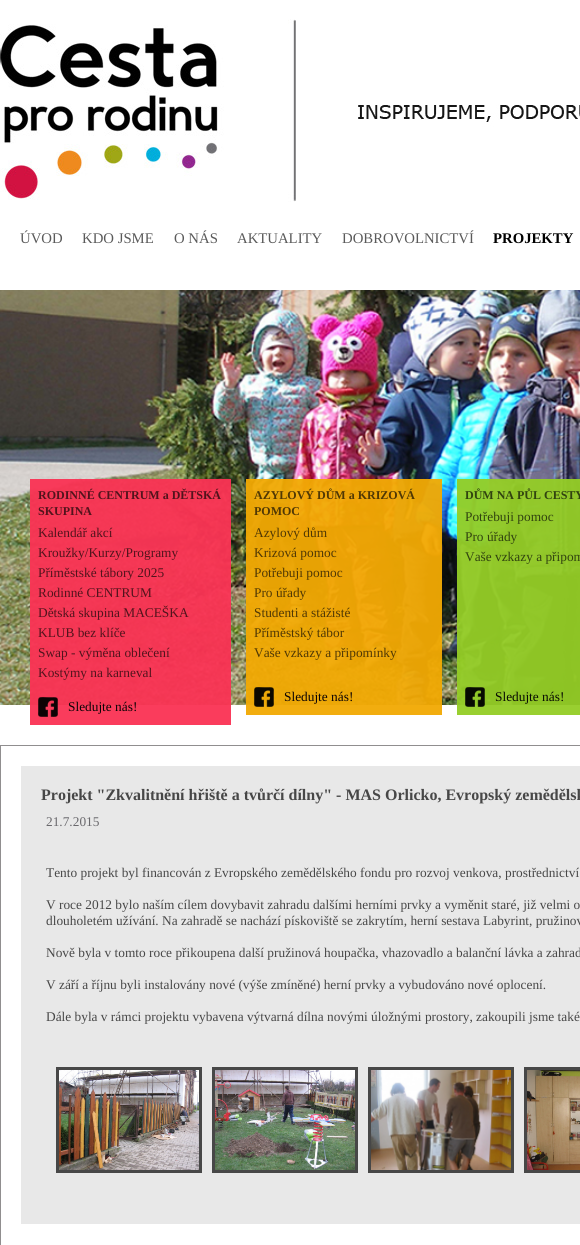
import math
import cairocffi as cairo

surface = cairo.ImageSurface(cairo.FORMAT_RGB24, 580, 1245)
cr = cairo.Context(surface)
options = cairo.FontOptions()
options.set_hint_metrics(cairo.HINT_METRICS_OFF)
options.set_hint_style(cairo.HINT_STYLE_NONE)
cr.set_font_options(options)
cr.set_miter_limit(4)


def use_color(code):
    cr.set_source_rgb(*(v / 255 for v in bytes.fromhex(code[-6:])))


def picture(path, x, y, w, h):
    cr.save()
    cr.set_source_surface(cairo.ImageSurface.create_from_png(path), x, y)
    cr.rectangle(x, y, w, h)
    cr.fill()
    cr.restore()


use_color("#ffffff")
cr.paint()
picture("img1.png", 0, 19, 580, 183)
cr.select_font_face("Liberation Serif")
cr.set_font_size(14.75)
use_color("#5a5a5a")
cr.move_to(20, 243)
cr.show_text("ÚVOD")
cr.move_to(82, 243)
cr.show_text("KDO JSME")
cr.move_to(174, 243)
cr.show_text("O NÁS")
cr.move_to(237, 243)
cr.show_text("AKTUALITY")
cr.move_to(342, 243)
cr.show_text("DOBROVOLNICTVÍ")
cr.select_font_face("Liberation Serif", cairo.FONT_SLANT_NORMAL, cairo.FONT_WEIGHT_BOLD)
use_color("#000000")
cr.move_to(493, 243)
cr.show_text("PROJEKTY")
picture("img2.png", 0, 290, 580, 415)
cr.set_source_rgba(0.98, 0.2, 0.329, 0.95)
cr.rectangle(30, 479, 201, 246)
cr.fill()
cr.set_font_size(12)
use_color("#52131c")
cr.move_to(38, 499)
cr.show_text("RODINNÉ CENTRUM a DĚTSKÁ")
cr.move_to(38, 515)
cr.show_text("SKUPINA")
cr.select_font_face("Liberation Serif")
cr.set_font_size(13.35)
cr.move_to(38, 537)
cr.show_text("Kalendář akcí")
cr.move_to(38, 557)
cr.show_text("Kroužky/Kurzy/Programy")
cr.move_to(38, 577)
cr.show_text("Příměstské tábory 2025")
cr.move_to(38, 597)
cr.show_text("Rodinné CENTRUM")
cr.move_to(38, 617)
cr.show_text("Dětská skupina MACEŠKA")
cr.move_to(38, 637)
cr.show_text("KLUB bez klíče")
cr.move_to(38, 657)
cr.show_text("Swap - výměna oblečení")
cr.move_to(38, 677)
cr.show_text("Kostýmy na karneval")
picture("img3.png", 38, 697, 20, 20)
use_color("#0c0305")
cr.move_to(68, 711)
cr.show_text("Sledujte nás!")
cr.set_source_rgba(0.949, 0.663, 0.016, 0.95)
cr.rectangle(246, 479, 196, 236)
cr.fill()
cr.select_font_face("Liberation Serif", cairo.FONT_SLANT_NORMAL, cairo.FONT_WEIGHT_BOLD)
cr.set_font_size(12)
use_color("#503804")
cr.move_to(254, 499)
cr.show_text("AZYLOVÝ DŮM a KRIZOVÁ")
cr.move_to(254, 515)
cr.show_text("POMOC")
cr.select_font_face("Liberation Serif")
cr.set_font_size(13.35)
cr.move_to(254, 537)
cr.show_text("Azylový dům")
cr.move_to(254, 557)
cr.show_text("Krizová pomoc")
cr.move_to(254, 577)
cr.show_text("Potřebuji pomoc")
cr.move_to(254, 597)
cr.show_text("Pro úřady")
cr.move_to(254, 617)
cr.show_text("Studenti a stážisté")
cr.move_to(254, 637)
cr.show_text("Příměstský tábor")
cr.move_to(254, 657)
cr.show_text("Vaše vzkazy a připomínky")
picture("img4.png", 254, 687, 20, 20)
use_color("#0c0305")
cr.move_to(284, 701)
cr.show_text("Sledujte nás!")
cr.set_source_rgba(0.58, 0.804, 0.149, 0.95)
cr.rectangle(457, 479, 123, 236)
cr.fill()
cr.select_font_face("Liberation Serif", cairo.FONT_SLANT_NORMAL, cairo.FONT_WEIGHT_BOLD)
cr.set_font_size(12)
use_color("#31430f")
cr.move_to(465, 499)
cr.show_text("DŮM NA PŮL CESTY")
cr.select_font_face("Liberation Serif")
cr.set_font_size(13.35)
cr.move_to(465, 521)
cr.show_text("Potřebuji pomoc")
cr.move_to(465, 541)
cr.show_text("Pro úřady")
cr.move_to(465, 561)
cr.show_text("Vaše vzkazy a připom")
picture("img5.png", 465, 687, 20, 20)
use_color("#070a02")
cr.move_to(495, 701)
cr.show_text("Sledujte nás!")
cr.rectangle(0.5, 745.5, 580, 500)
use_color("#908e8f")
cr.set_line_width(1)
cr.stroke()
use_color("#e8e8e8")
cr.rectangle(21, 766, 559, 458)
cr.fill()
cr.select_font_face("Liberation Serif", cairo.FONT_SLANT_NORMAL, cairo.FONT_WEIGHT_BOLD)
cr.set_font_size(16)
use_color("#474747")
cr.move_to(41, 800)
cr.show_text("Projekt \"Zkvalitnění hřiště a tvůrčí dílny\" - MAS Orlicko, Evropský zemědělsk")
cr.select_font_face("Liberation Serif")
cr.set_font_size(13.35)
use_color("#69686c")
cr.move_to(46, 826)
cr.show_text("21.7.2015")
use_color("#474747")
cr.move_to(46, 877)
cr.show_text("Tento projekt byl financován z Evropského zemědělského fondu pro rozvoj venkova, prostřednictví")
cr.move_to(46, 909)
cr.show_text("V roce 2012 bylo naším cílem dovybavit zahradu dalšími herními prvky a vyměnit staré, již velmi o")
cr.move_to(46, 925)
cr.show_text("dlouholetém užívání. Na zahradě se nachází pískoviště se zakrytím, herní sestava Labyrint, pružinov")
cr.move_to(46, 957)
cr.show_text("Nově byla v tomto roce přikoupena další pružinová houpačka, vhazovadlo a balanční lávka a zahrad")
cr.move_to(46, 989)
cr.show_text("V září a říjnu byli instalovány nové (výše zmíněné) herní prvky a vybudováno nové oplocení.")
cr.move_to(46, 1021)
cr.show_text("Dále byla v rámci projektu vybavena výtvarná dílna novými úložnými prostory, zakoupili jsme také")
picture("img6.png", 59, 1070, 140, 100)
cr.rectangle(57.5, 1068.5, 143, 103)
cr.set_line_width(3)
cr.stroke()
picture("img7.png", 215, 1070, 140, 100)
cr.rectangle(213.5, 1068.5, 143, 103)
cr.stroke()
picture("img8.png", 371, 1070, 140, 100)
cr.rectangle(369.5, 1068.5, 143, 103)
cr.stroke()
picture("img9.png", 527, 1070, 53, 100)
cr.rectangle(525.5, 1068.5, 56, 103)
cr.stroke()
surface.write_to_png("result.png")
